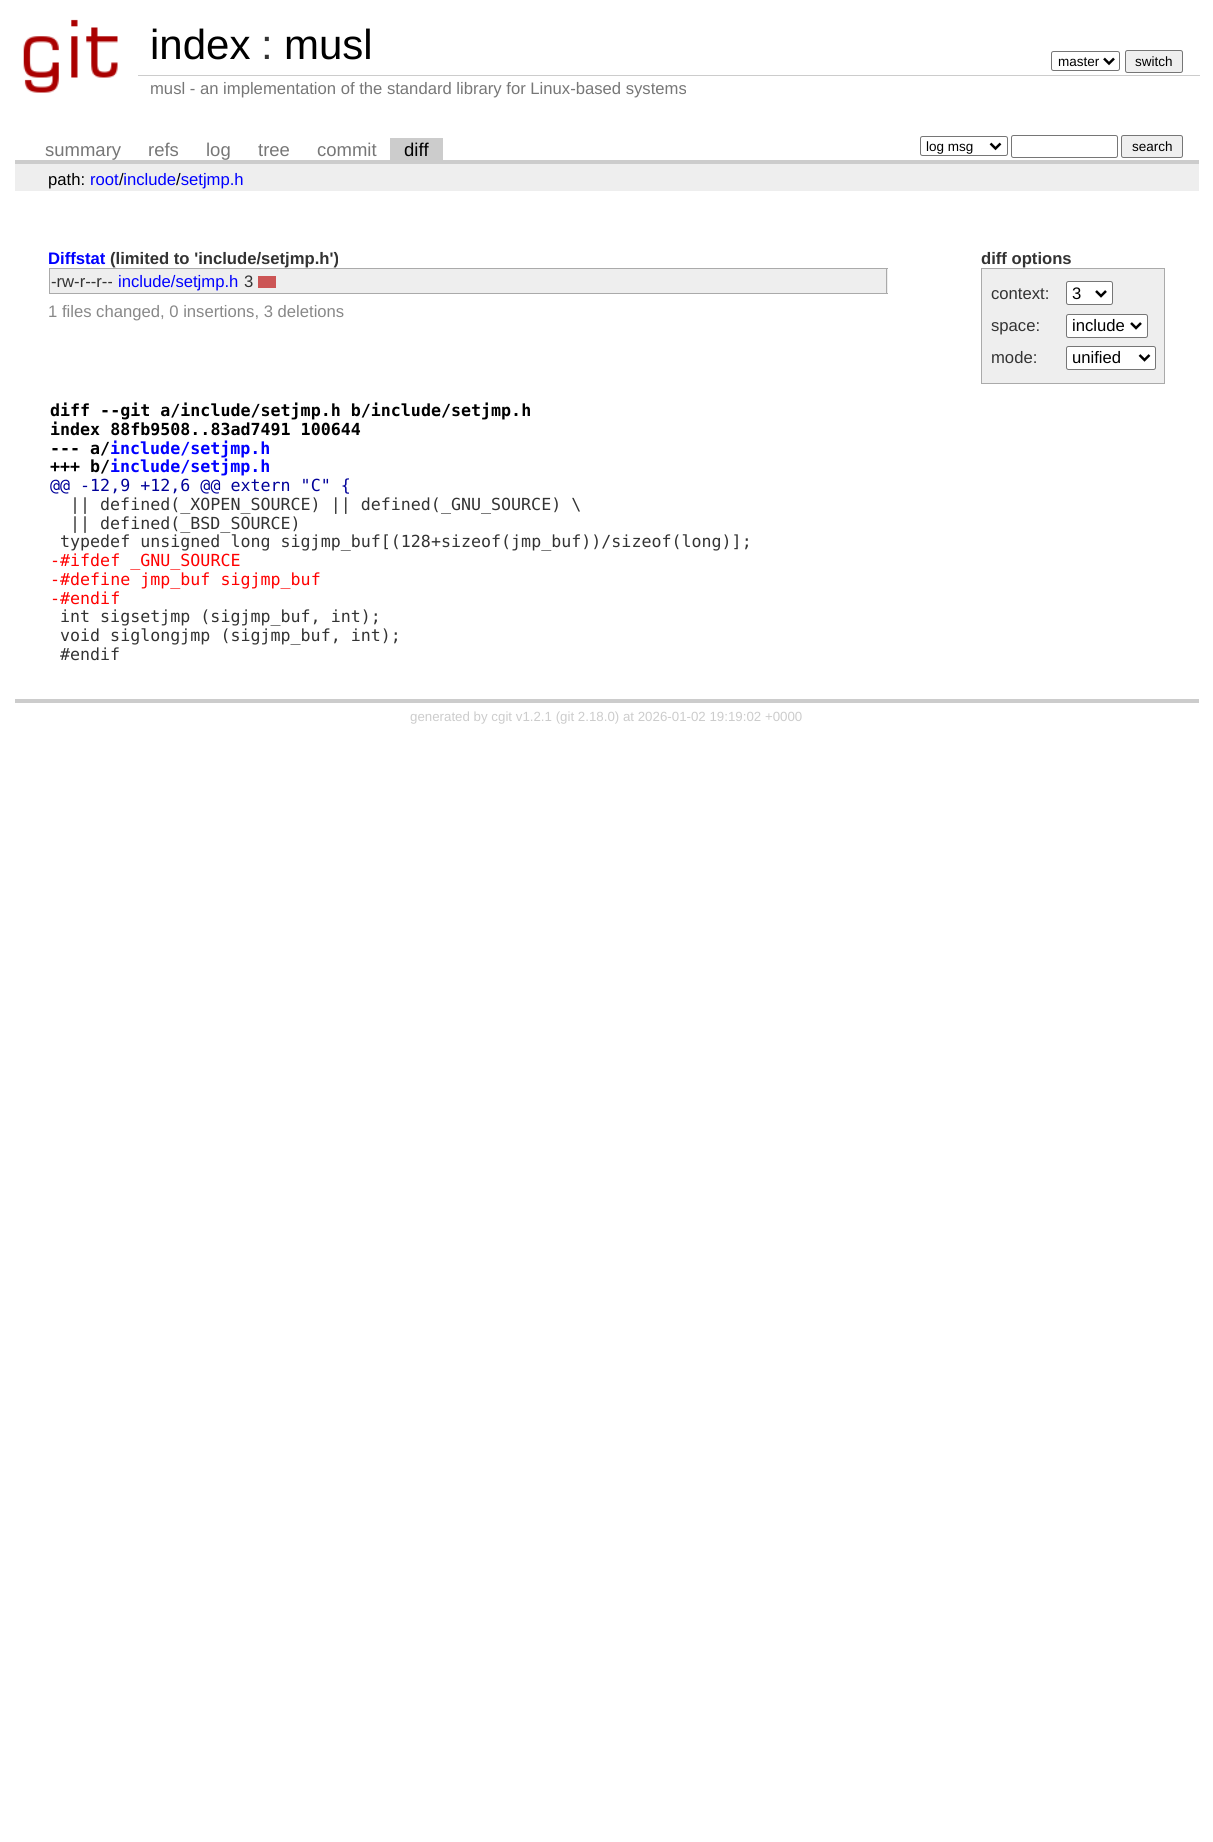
import math
import cairocffi as cairo

surface = cairo.ImageSurface(cairo.FORMAT_RGB24, 1213, 1842)
cr = cairo.Context(surface)
options = cairo.FontOptions()
options.set_hint_metrics(cairo.HINT_METRICS_OFF)
options.set_hint_style(cairo.HINT_STYLE_NONE)
cr.set_font_options(options)
cr.set_miter_limit(4)


def use_color(code):
    cr.set_source_rgb(*(v / 255 for v in bytes.fromhex(code[-6:])))


def round_rect(x, y, w, h, r):
    cr.new_sub_path()
    for i, (u, v) in enumerate([(x + w - r, y + h - r), (x + r, y + h - r), (x + r, y + r), (x + w - r, y + r)]):
        cr.arc(u, v, r, i * math.pi / 2, (i + 1) * math.pi / 2)
    cr.close_path()


def picture(path, x, y, w, h):
    cr.save()
    cr.set_source_surface(cairo.ImageSurface.create_from_png(path), x, y)
    cr.rectangle(x, y, w, h)
    cr.fill()
    cr.restore()


use_color("#ffffff")
cr.paint()
picture("img1.png", 23, 19, 95, 74)
cr.select_font_face("Liberation Sans")
cr.set_font_size(42)
use_color("#000000")
cr.move_to(150, 59)
cr.show_text("index")
use_color("#333333")
cr.move_to(261, 59)
cr.show_text(":")
use_color("#000000")
cr.move_to(284, 59)
cr.show_text("musl")
round_rect(1051.5, 51.5, 68, 19, 2)
use_color("#767676")
cr.set_line_width(1)
cr.stroke()
cr.new_path()
cr.move_to(1104, 58.5)
cr.line_to(1109, 63.5)
cr.line_to(1114, 58.5)
use_color("#000000")
cr.set_line_width(2.5)
cr.stroke()
cr.set_font_size(13.5)
cr.move_to(1058, 66)
cr.show_text("master")
use_color("#efefef")
round_rect(1125.5, 50.5, 57, 22, 2)
cr.fill_preserve()
use_color("#767676")
cr.set_line_width(1)
cr.stroke()
use_color("#000000")
cr.move_to(1135, 66)
cr.show_text("switch")
use_color("#cccccc")
cr.rectangle(138, 75, 1062, 1)
cr.fill()
cr.set_font_size(16.65)
use_color("#777777")
cr.move_to(150, 94)
cr.show_text("musl - an implementation of the standard library for Linux-based systems")
use_color("#cccccc")
cr.rectangle(15, 160, 1184, 4)
cr.fill()
cr.set_font_size(18.5)
use_color("#777777")
cr.move_to(45, 156)
cr.show_text("summary")
cr.move_to(148, 156)
cr.show_text("refs")
cr.move_to(206, 156)
cr.show_text("log")
cr.move_to(258, 156)
cr.show_text("tree")
cr.move_to(317, 156)
cr.show_text("commit")
use_color("#cccccc")
cr.rectangle(390, 138, 53, 22)
cr.fill()
use_color("#000000")
cr.move_to(404, 156)
cr.show_text("diff")
round_rect(920.5, 136.5, 87, 19, 2)
use_color("#767676")
cr.stroke()
cr.new_path()
cr.move_to(990.5, 143.5)
cr.line_to(995.5, 148.5)
cr.line_to(1000.5, 143.5)
use_color("#000000")
cr.set_line_width(2.5)
cr.stroke()
cr.set_font_size(13.5)
cr.move_to(926, 151)
cr.show_text("log msg")
round_rect(1011.5, 135.5, 106, 22, 2)
use_color("#767676")
cr.set_line_width(1)
cr.stroke()
use_color("#efefef")
round_rect(1121.5, 135.5, 61, 22, 2)
cr.fill_preserve()
use_color("#767676")
cr.stroke()
use_color("#000000")
cr.move_to(1132, 151)
cr.show_text("search")
use_color("#eeeeee")
cr.rectangle(15, 164, 1184, 27)
cr.fill()
cr.set_font_size(16.65)
use_color("#000000")
cr.move_to(48, 185)
cr.show_text("path:")
use_color("#0000ff")
cr.move_to(90, 185)
cr.show_text("root include setjmp.h")
use_color("#000000")
cr.move_to(119, 185)
cr.show_text("/")
cr.move_to(176, 185)
cr.show_text("/")
use_color("#cccccc")
cr.rectangle(15, 699, 1184, 4)
cr.fill()
cr.select_font_face("Liberation Sans", cairo.FONT_SLANT_NORMAL, cairo.FONT_WEIGHT_BOLD)
use_color("#0000ff")
cr.move_to(48, 264)
cr.show_text("Diffstat")
use_color("#333333")
cr.move_to(110, 264)
cr.show_text("(limited to 'include/setjmp.h')")
cr.move_to(981, 264)
cr.show_text("diff options")
use_color("#eeeeee")
cr.rectangle(982, 269, 182, 114)
cr.fill()
use_color("#aaaaaa")
cr.rectangle(981, 268, 184, 1)
cr.fill()
cr.rectangle(1164, 268, 1, 116)
cr.fill()
cr.rectangle(981, 383, 184, 1)
cr.fill()
cr.rectangle(981, 268, 1, 116)
cr.fill()
cr.select_font_face("Liberation Sans")
use_color("#333333")
cr.move_to(991, 299)
cr.show_text("context:")
use_color("#ffffff")
round_rect(1066.5, 281.5, 46, 23, 2)
cr.fill_preserve()
use_color("#767676")
cr.stroke()
cr.new_path()
cr.move_to(1096, 291)
cr.line_to(1101, 296)
cr.line_to(1106, 291)
use_color("#000000")
cr.set_line_width(2.5)
cr.stroke()
cr.move_to(1072, 299)
cr.show_text("3")
use_color("#333333")
cr.move_to(991, 331)
cr.show_text("space:")
use_color("#ffffff")
round_rect(1066.5, 314.5, 81, 23, 2)
cr.fill_preserve()
use_color("#767676")
cr.set_line_width(1)
cr.stroke()
cr.new_path()
cr.move_to(1131, 323)
cr.line_to(1136, 328)
cr.line_to(1141, 323)
use_color("#000000")
cr.set_line_width(2.5)
cr.stroke()
cr.move_to(1072, 331)
cr.show_text("include")
use_color("#333333")
cr.move_to(991, 363)
cr.show_text("mode:")
use_color("#ffffff")
round_rect(1066.5, 346.5, 89, 23, 2)
cr.fill_preserve()
use_color("#767676")
cr.set_line_width(1)
cr.stroke()
cr.new_path()
cr.move_to(1139.5, 355)
cr.line_to(1144.5, 360)
cr.line_to(1149.5, 355)
use_color("#000000")
cr.set_line_width(2.5)
cr.stroke()
cr.move_to(1072, 363)
cr.show_text("unified")
use_color("#eeeeee")
cr.rectangle(50, 269, 838, 24)
cr.fill()
use_color("#aaaaaa")
cr.rectangle(49, 268, 839, 1)
cr.fill()
cr.rectangle(886, 268, 1, 26)
cr.fill()
cr.rectangle(49, 293, 839, 1)
cr.fill()
cr.rectangle(49, 268, 1, 26)
cr.fill()
use_color("#333333")
cr.move_to(51, 287)
cr.show_text("-rw-r--r--")
use_color("#0000ff")
cr.move_to(118, 287)
cr.show_text("include/setjmp.h")
use_color("#333333")
cr.move_to(244, 287)
cr.show_text("3")
use_color("#cc5555")
cr.rectangle(258, 276, 18, 12)
cr.fill()
use_color("#888888")
cr.move_to(48, 317)
cr.show_text("1 files changed, 0 insertions, 3 deletions")
cr.select_font_face("DejaVu Sans Mono", cairo.FONT_SLANT_NORMAL, cairo.FONT_WEIGHT_BOLD)
use_color("#000000")
cr.move_to(50, 416)
cr.show_text("diff --git a/include/setjmp.h b/include/setjmp.h")
cr.move_to(50, 435)
cr.show_text("index 88fb9508..83ad7491 100644")
cr.move_to(50, 454)
cr.show_text("--- a/")
use_color("#0000ff")
cr.move_to(110, 454)
cr.show_text("include/setjmp.h")
use_color("#000000")
cr.move_to(50, 472)
cr.show_text("+++ b/")
use_color("#0000ff")
cr.move_to(110, 472)
cr.show_text("include/setjmp.h")
cr.select_font_face("DejaVu Sans Mono")
use_color("#000099")
cr.move_to(50, 491)
cr.show_text("@@ -12,9 +12,6 @@ extern \"C\" {")
use_color("#333333")
cr.move_to(70, 510)
cr.show_text("|| defined(_XOPEN_SOURCE) || defined(_GNU_SOURCE) \\")
cr.move_to(70, 529)
cr.show_text("|| defined(_BSD_SOURCE)")
cr.move_to(60, 547)
cr.show_text("typedef unsigned long sigjmp_buf[(128+sizeof(jmp_buf))/sizeof(long)];")
use_color("#ff0000")
cr.move_to(50, 566)
cr.show_text("-#ifdef _GNU_SOURCE")
cr.move_to(50, 585)
cr.show_text("-#define jmp_buf sigjmp_buf")
cr.move_to(50, 604)
cr.show_text("-#endif")
use_color("#333333")
cr.move_to(60, 622)
cr.show_text("int sigsetjmp (sigjmp_buf, int);")
cr.move_to(60, 641)
cr.show_text("void siglongjmp (sigjmp_buf, int);")
cr.move_to(60, 660)
cr.show_text("#endif")
cr.select_font_face("Liberation Sans")
cr.set_font_size(13.3)
use_color("#cccccc")
cr.move_to(410, 721)
cr.show_text("generated by cgit v1.2.1 (git 2.18.0) at 2026-01-02 19:19:02 +0000")
surface.write_to_png("result.png")
